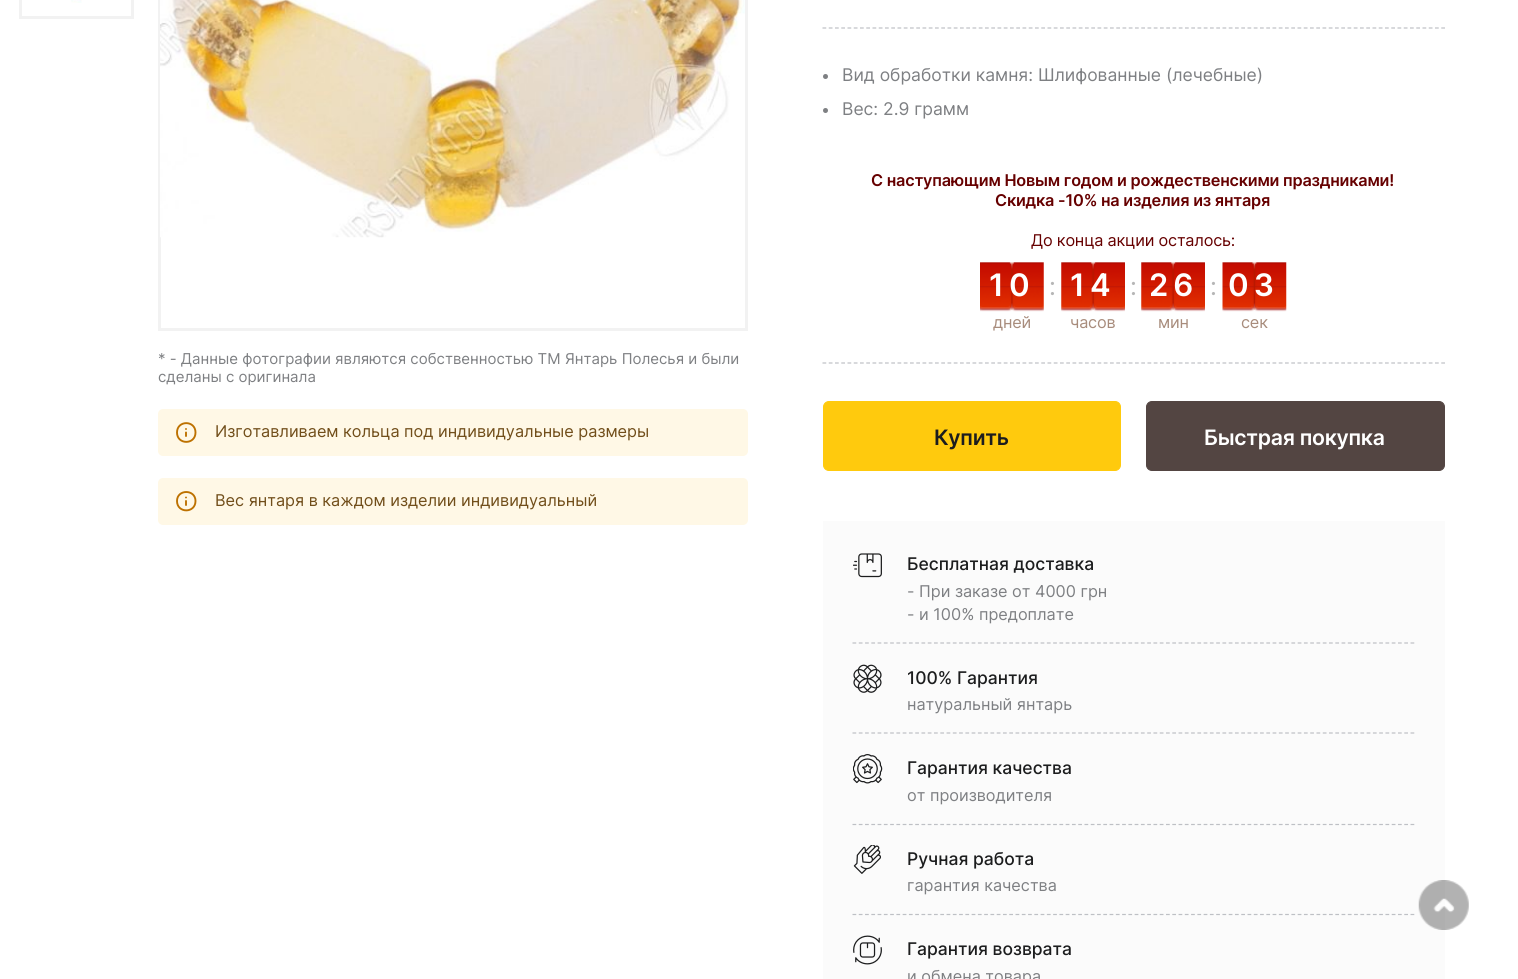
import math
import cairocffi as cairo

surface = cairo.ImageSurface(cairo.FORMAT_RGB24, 1518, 979)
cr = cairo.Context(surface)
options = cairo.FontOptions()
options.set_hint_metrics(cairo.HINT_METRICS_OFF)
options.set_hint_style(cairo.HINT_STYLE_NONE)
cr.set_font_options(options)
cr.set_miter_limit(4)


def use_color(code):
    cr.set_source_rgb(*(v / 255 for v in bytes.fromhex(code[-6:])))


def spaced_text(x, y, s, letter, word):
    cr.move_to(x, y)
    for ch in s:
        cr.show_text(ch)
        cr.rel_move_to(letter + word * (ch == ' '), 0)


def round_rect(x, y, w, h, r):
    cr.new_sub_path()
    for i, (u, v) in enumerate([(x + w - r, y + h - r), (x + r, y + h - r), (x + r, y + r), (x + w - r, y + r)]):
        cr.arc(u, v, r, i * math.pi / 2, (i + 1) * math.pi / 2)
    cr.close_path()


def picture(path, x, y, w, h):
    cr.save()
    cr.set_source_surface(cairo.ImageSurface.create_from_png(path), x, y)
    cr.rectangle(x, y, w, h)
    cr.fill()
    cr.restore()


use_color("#ffffff")
cr.paint()
cr.rectangle(20.5, -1.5, 112, 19)
use_color("#f2f2f2")
cr.set_line_width(3)
cr.stroke()
picture("img1.png", 71, 0, 11, 3)
cr.rectangle(159.5, -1.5, 587, 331)
cr.stroke()
picture("img2.png", 160, 0, 585, 238)
cr.select_font_face("Inter")
cr.set_font_size(15)
use_color("#7e8083")
cr.move_to(158, 364)
cr.show_text("* - Данные фотографии являются собственностью ТМ Янтарь Полесья и были")
cr.move_to(158, 382)
cr.show_text("сделаны с оригинала")
use_color("#fff8e6")
round_rect(158, 409, 590, 47, 5)
cr.fill()
cr.new_path()
cr.move_to(186, 436)
cr.line_to(186, 432.5)
cr.move_to(186, 429)
cr.line_to(186, 429)
cr.move_to(177, 432.5)
cr.curve_to(177, 420, 195.5, 420, 195.5, 432.5)
cr.curve_to(195.5, 445, 177, 445, 177, 432.5)
cr.close_path()
use_color("#bd7100")
cr.set_line_width(1.9)
cr.set_line_cap(cairo.LINE_CAP_ROUND)
cr.set_line_join(cairo.LINE_JOIN_ROUND)
cr.stroke()
cr.set_font_size(16.25)
use_color("#714e1a")
cr.move_to(215, 437)
cr.show_text("Изготавливаем кольца под индивидуальные размеры")
use_color("#fff8e6")
round_rect(158, 478, 590, 47, 5)
cr.fill()
cr.new_path()
cr.move_to(186, 505)
cr.line_to(186, 501)
cr.move_to(186, 497.5)
cr.line_to(186, 497.5)
cr.move_to(177, 501)
cr.curve_to(177, 489, 195.5, 489, 195.5, 501)
cr.curve_to(195.5, 513.5, 177, 513.5, 177, 501)
cr.close_path()
use_color("#bd7100")
cr.stroke()
use_color("#714e1a")
cr.move_to(215, 506)
cr.show_text("Вес янтаря в каждом изделии индивидуальный")
cr.new_path()
cr.move_to(822.5, 28)
cr.line_to(1445, 28)
use_color("#bec0c5")
cr.set_line_width(1.2)
cr.set_line_cap(cairo.LINE_CAP_BUTT)
cr.set_line_join(cairo.LINE_JOIN_MITER)
cr.set_dash([3.75, 2.5])
cr.stroke()
use_color("#7e8083")
cr.arc(825.5, 76.5, 2.5, 0, 2 * math.pi)
cr.fill()
cr.set_font_size(17.5)
cr.move_to(842, 81)
cr.show_text("Вид обработки камня: Шлифованные (лечебные)")
cr.new_path()
cr.arc(825.5, 110.5, 2.5, 0, 2 * math.pi)
cr.fill()
cr.move_to(842, 115)
cr.show_text("Вес: 2.9 грамм")
cr.select_font_face("Inter SemiBold")
cr.set_font_size(16.25)
use_color("#660000")
spaced_text(871, 186, "С наступающим Новым годом и рождественскими праздниками!", -0.2, 0)
spaced_text(995, 206, "Скидка -10% на изделия из янтаря", -0.2, 0)
cr.select_font_face("Inter")
spaced_text(1031, 246, "До конца акции осталось:", -0.2, 0)
cr.new_path()
cr.move_to(822.5, 363)
cr.line_to(1445, 363)
use_color("#bec0c5")
cr.stroke()
picture("img3.png", 980, 262, 64, 50)
cr.select_font_face("Inter SemiBold")
cr.set_font_size(31)
use_color("#ffffff")
spaced_text(989, 296, "10", 5, 0)
cr.select_font_face("Inter")
cr.set_font_size(16.25)
use_color("#a88c7c")
spaced_text(993, 328, "дней", -0.2, 0)
cr.set_font_size(25)
use_color("#b6b6b6")
spaced_text(1049, 295, ":", -0.2, 0)
picture("img4.png", 1061, 262, 64, 50)
cr.select_font_face("Inter SemiBold")
cr.set_font_size(31)
use_color("#ffffff")
spaced_text(1070, 296, "14", 5, 0)
cr.select_font_face("Inter")
cr.set_font_size(16.25)
use_color("#a88c7c")
spaced_text(1070, 328, "часов", -0.2, 0)
cr.set_font_size(25)
use_color("#b6b6b6")
spaced_text(1130, 295, ":", -0.2, 0)
picture("img4.png", 1141, 262, 64, 50)
cr.select_font_face("Inter SemiBold")
cr.set_font_size(31)
use_color("#ffffff")
spaced_text(1149, 296, "26", 5, 0)
cr.select_font_face("Inter")
cr.set_font_size(16.25)
use_color("#a88c7c")
spaced_text(1158, 328, "мин", -0.2, 0)
cr.set_font_size(25)
use_color("#b6b6b6")
spaced_text(1210, 295, ":", -0.2, 0)
picture("img5.png", 1222, 262, 65, 50)
cr.select_font_face("Inter SemiBold")
cr.set_font_size(31)
use_color("#ffffff")
spaced_text(1228, 296, "03", 5, 0)
cr.select_font_face("Inter")
cr.set_font_size(16.25)
use_color("#a88c7c")
spaced_text(1241, 328, "сек", -0.2, 0)
use_color("#ffca0d")
round_rect(823.5, 401.5, 297, 69, 5.5)
cr.fill_preserve()
cr.set_line_width(1)
cr.set_dash([])
cr.stroke()
cr.select_font_face("Inter SemiBold")
cr.set_font_size(21.25)
use_color("#1c1d1e")
spaced_text(934, 445, "Купить", -0.25, 0)
use_color("#534542")
round_rect(1146.5, 401.5, 298, 69, 5.5)
cr.fill_preserve()
cr.stroke()
use_color("#ffffff")
spaced_text(1204, 445, "Быстрая покупка", -0.25, 0)
use_color("#fbfbfb")
cr.rectangle(823, 521, 622, 458)
cr.fill()
cr.new_path()
cr.move_to(852.5, 643)
cr.line_to(1415, 643)
use_color("#bec0c5")
cr.set_line_width(1.2)
cr.set_dash([3.75, 2.52])
cr.stroke()
picture("img6.png", 853, 553, 29, 25)
cr.select_font_face("Inter Medium")
cr.set_font_size(17.5)
use_color("#1c1d1e")
cr.move_to(907, 570)
cr.show_text("Бесплатная доставка")
cr.select_font_face("Inter")
cr.set_font_size(16.25)
use_color("#7e8083")
cr.move_to(907, 597)
cr.show_text("- При заказе от 4000 грн")
cr.move_to(907, 620)
cr.show_text("- и 100% предоплате")
cr.new_path()
cr.move_to(852.5, 733)
cr.line_to(1415, 733)
use_color("#bec0c5")
cr.stroke()
picture("img7.png", 853, 664, 29, 29)
cr.select_font_face("Inter Medium")
cr.set_font_size(17.5)
use_color("#1c1d1e")
cr.move_to(907, 684)
cr.show_text("100% Гарантия")
cr.select_font_face("Inter")
cr.set_font_size(16.25)
use_color("#7e8083")
cr.move_to(907, 710)
cr.show_text("натуральный янтарь")
cr.new_path()
cr.move_to(852.5, 824.5)
cr.line_to(1415, 824.5)
use_color("#bec0c5")
cr.stroke()
picture("img8.png", 853, 754, 30, 30)
cr.select_font_face("Inter Medium")
cr.set_font_size(17.5)
use_color("#1c1d1e")
cr.move_to(907, 774)
cr.show_text("Гарантия качества")
cr.select_font_face("Inter")
cr.set_font_size(16.25)
use_color("#7e8083")
cr.move_to(907, 801)
cr.show_text("от производителя")
cr.new_path()
cr.move_to(852.5, 914.5)
cr.line_to(1415, 914.5)
use_color("#bec0c5")
cr.stroke()
picture("img9.png", 853, 845, 28, 29)
cr.select_font_face("Inter Medium")
cr.set_font_size(17.5)
use_color("#1c1d1e")
cr.move_to(907, 865)
cr.show_text("Ручная работа")
cr.select_font_face("Inter")
cr.set_font_size(16.25)
use_color("#7e8083")
cr.move_to(907, 891)
cr.show_text("гарантия качества")
picture("img10.png", 853, 935, 29, 30)
cr.select_font_face("Inter Medium")
cr.set_font_size(17.5)
use_color("#1c1d1e")
cr.move_to(907, 955)
cr.show_text("Гарантия возврата")
cr.select_font_face("Inter")
cr.set_font_size(16.25)
use_color("#7e8083")
cr.move_to(907, 982)
cr.show_text("и обмена товара")
picture("img11.png", 1418, 880, 51, 50)
surface.write_to_png("result.png")
